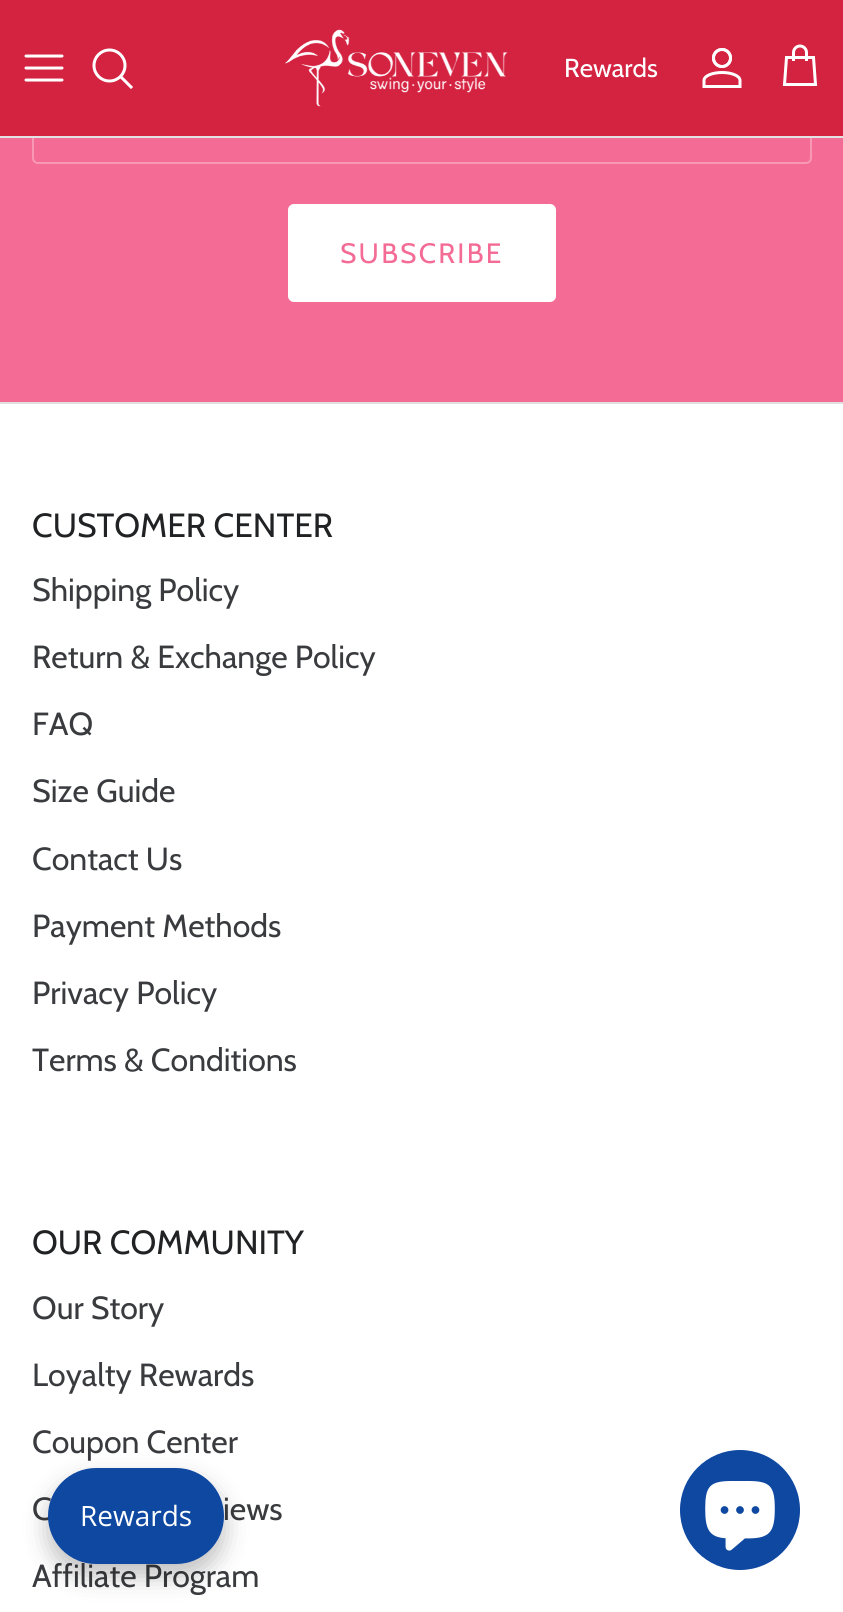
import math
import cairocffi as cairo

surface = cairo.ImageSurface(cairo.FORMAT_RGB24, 843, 1612)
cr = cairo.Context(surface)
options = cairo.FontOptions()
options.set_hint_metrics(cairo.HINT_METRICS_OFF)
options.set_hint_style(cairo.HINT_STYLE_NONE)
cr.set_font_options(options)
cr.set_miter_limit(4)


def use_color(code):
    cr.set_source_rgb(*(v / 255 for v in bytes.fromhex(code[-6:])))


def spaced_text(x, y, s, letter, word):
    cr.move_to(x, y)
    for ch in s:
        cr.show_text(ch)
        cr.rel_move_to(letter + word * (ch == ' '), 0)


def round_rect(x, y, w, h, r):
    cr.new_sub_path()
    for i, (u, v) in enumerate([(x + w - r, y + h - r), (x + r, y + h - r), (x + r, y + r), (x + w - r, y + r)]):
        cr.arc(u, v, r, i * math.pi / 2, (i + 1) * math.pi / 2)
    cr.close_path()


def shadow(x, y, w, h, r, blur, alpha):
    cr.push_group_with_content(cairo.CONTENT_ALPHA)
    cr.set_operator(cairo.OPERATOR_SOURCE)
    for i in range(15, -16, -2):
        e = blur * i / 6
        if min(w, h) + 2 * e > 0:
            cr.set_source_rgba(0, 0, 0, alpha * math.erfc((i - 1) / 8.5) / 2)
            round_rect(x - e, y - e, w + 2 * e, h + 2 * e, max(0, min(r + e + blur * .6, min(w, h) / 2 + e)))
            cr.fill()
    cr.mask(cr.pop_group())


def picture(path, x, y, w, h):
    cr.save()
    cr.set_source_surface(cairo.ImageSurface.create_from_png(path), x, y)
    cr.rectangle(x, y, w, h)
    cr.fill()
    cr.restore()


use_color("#ffffff")
cr.paint()
use_color("#f46c95")
cr.rectangle(0, 138, 843, 264)
cr.fill()
round_rect(33, 67, 778, 96, 5)
use_color("#f798b5")
cr.stroke()
use_color("#d42241")
cr.rectangle(0, 0, 843, 136)
cr.fill()
use_color("#e2e2e2")
cr.rectangle(0, 136, 843, 2)
cr.fill()
cr.new_path()
cr.move_to(26, 68)
cr.line_to(62, 68)
cr.move_to(26, 56)
cr.line_to(62, 56)
cr.move_to(26, 80)
cr.line_to(62, 80)
use_color("#ffffff")
cr.set_line_width(3)
cr.set_line_cap(cairo.LINE_CAP_ROUND)
cr.set_line_join(cairo.LINE_JOIN_ROUND)
cr.stroke()
cr.arc(109.5, 65.5, 15.5, 0, 2 * math.pi)
cr.set_line_cap(cairo.LINE_CAP_BUTT)
cr.set_line_join(cairo.LINE_JOIN_MITER)
cr.stroke()
cr.new_path()
cr.move_to(122, 78)
cr.line_to(131, 87)
cr.set_line_cap(cairo.LINE_CAP_SQUARE)
cr.stroke()
picture("img1.png", 285, 29, 223, 78)
cr.select_font_face("Cabin")
cr.set_font_size(26)
cr.move_to(564, 77)
cr.show_text("Rewards")
picture("img2.png", 702, 48, 40, 40)
cr.new_path()
cr.move_to(806.5, 61)
cr.line_to(806.5, 52.5)
cr.curve_to(806.5, 49, 803.5, 46, 800, 46)
cr.curve_to(796.5, 46, 793.5, 49, 793.5, 52.5)
cr.line_to(793.5, 61)
cr.move_to(786.5, 57.5)
cr.line_to(813.5, 57.5)
cr.line_to(815.5, 84.5)
cr.line_to(784.5, 84.5)
cr.close_path()
cr.set_line_cap(cairo.LINE_CAP_BUTT)
cr.stroke()
round_rect(289, 205, 266, 96, 5)
cr.fill_preserve()
cr.set_line_width(2)
cr.stroke()
cr.set_font_size(28)
use_color("#f46c95")
spaced_text(340, 263, "SUBSCRIBE", 2.25, 0)
use_color("#e0e0e0")
cr.rectangle(0, 402, 843, 2)
cr.fill()
cr.set_font_size(33.5)
use_color("#202223")
cr.move_to(32, 537)
cr.show_text("CUSTOMER CENTER")
cr.set_font_size(32)
use_color("#393b3e")
cr.move_to(32, 601)
cr.show_text("Shipping Policy")
cr.move_to(32, 668)
cr.show_text("Return & Exchange Policy")
cr.move_to(32, 735)
cr.show_text("FAQ")
cr.move_to(32, 802)
cr.show_text("Size Guide")
cr.move_to(32, 870)
cr.show_text("Contact Us")
cr.move_to(32, 937)
cr.show_text("Payment Methods")
cr.move_to(32, 1004)
cr.show_text("Privacy Policy")
cr.move_to(32, 1071)
cr.show_text("Terms & Conditions")
cr.set_font_size(33.5)
use_color("#202223")
cr.move_to(32, 1254)
cr.show_text("OUR COMMUNITY")
cr.set_font_size(32)
use_color("#393b3e")
cr.move_to(32, 1319)
cr.show_text("Our Story")
cr.move_to(32, 1386)
cr.show_text("Loyalty Rewards")
cr.move_to(32, 1453)
cr.show_text("Coupon Center")
cr.move_to(32, 1520)
cr.show_text("C")
cr.move_to(223, 1520)
cr.show_text("iews")
cr.move_to(32, 1587)
cr.show_text("Affiliate Program")
use_color("#0e48a1")
cr.new_path()
cr.arc(740, 1510, 60, 0, 2 * math.pi)
cr.fill()
picture("img3.png", 705, 1481, 70, 70)
use_color("#000000")
shadow(48, 1480, 176, 96, 48, 12, 0.25)
use_color("#0e48a1")
round_rect(48, 1468, 176, 96, 48)
cr.fill()
cr.select_font_face("Open Sans")
cr.set_font_size(28)
use_color("#ffffff")
cr.move_to(80, 1526)
cr.show_text("Rewards")
surface.write_to_png("result.png")
